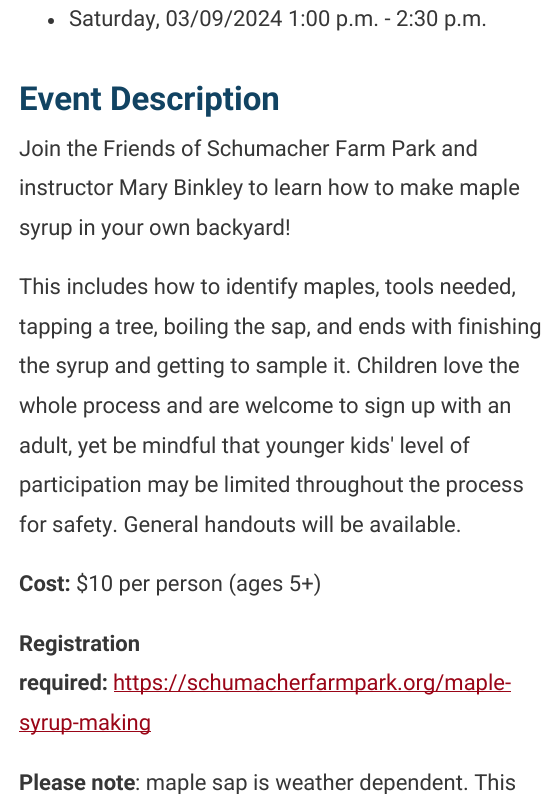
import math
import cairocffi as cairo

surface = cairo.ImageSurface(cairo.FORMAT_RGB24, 559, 794)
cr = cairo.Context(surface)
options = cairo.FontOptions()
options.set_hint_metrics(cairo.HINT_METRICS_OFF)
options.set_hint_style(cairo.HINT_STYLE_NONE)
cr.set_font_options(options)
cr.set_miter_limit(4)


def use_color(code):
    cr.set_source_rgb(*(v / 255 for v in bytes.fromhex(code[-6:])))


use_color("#ffffff")
cr.paint()
use_color("#363636")
cr.arc(51, 21, 3, 0, 2 * math.pi)
cr.fill()
cr.select_font_face("Roboto")
cr.set_font_size(22)
cr.move_to(69, 26)
cr.show_text("Saturday, 03/09/2024 1:00 p.m. - 2:30 p.m.")
cr.select_font_face("Roboto", cairo.FONT_SLANT_NORMAL, cairo.FONT_WEIGHT_BOLD)
cr.set_font_size(33)
use_color("#114362")
cr.move_to(19, 110)
cr.show_text("Event Description")
cr.select_font_face("Roboto")
cr.set_font_size(22)
use_color("#363636")
cr.move_to(19, 156)
cr.show_text("Join the Friends of Schumacher Farm Park and")
cr.move_to(19, 195)
cr.show_text("instructor Mary Binkley to learn how to make maple")
cr.move_to(19, 235)
cr.show_text("syrup in your own backyard!")
cr.move_to(19, 294)
cr.show_text("This includes how to identify maples, tools needed,")
cr.move_to(19, 334)
cr.show_text("tapping a tree, boiling the sap, and ends with finishing")
cr.move_to(19, 373)
cr.show_text("the syrup and getting to sample it. Children love the")
cr.move_to(19, 413)
cr.show_text("whole process and are welcome to sign up with an")
cr.move_to(19, 453)
cr.show_text("adult, yet be mindful that younger kids' level of")
cr.move_to(19, 492)
cr.show_text("participation may be limited throughout the process")
cr.move_to(19, 532)
cr.show_text("for safety. General handouts will be available.")
cr.select_font_face("Roboto", cairo.FONT_SLANT_NORMAL, cairo.FONT_WEIGHT_BOLD)
cr.move_to(19, 591)
cr.show_text("Cost:")
cr.select_font_face("Roboto")
cr.move_to(76, 591)
cr.show_text("$10 per person (ages 5+)")
cr.select_font_face("Roboto", cairo.FONT_SLANT_NORMAL, cairo.FONT_WEIGHT_BOLD)
cr.move_to(19, 651)
cr.show_text("Registration")
cr.move_to(19, 690)
cr.show_text("required:")
use_color("#9a0517")
cr.rectangle(114, 691, 397, 1)
cr.fill()
cr.select_font_face("Roboto")
cr.move_to(113, 690)
cr.show_text("https://schumacherfarmpark.org/maple-")
cr.rectangle(19, 731, 132, 1)
cr.fill()
cr.move_to(19, 730)
cr.show_text("syrup-making")
cr.select_font_face("Roboto", cairo.FONT_SLANT_NORMAL, cairo.FONT_WEIGHT_BOLD)
use_color("#363636")
cr.move_to(19, 790)
cr.show_text("Please note")
cr.select_font_face("Roboto")
cr.move_to(135, 790)
cr.show_text(": maple sap is weather dependent. This")
surface.write_to_png("result.png")
